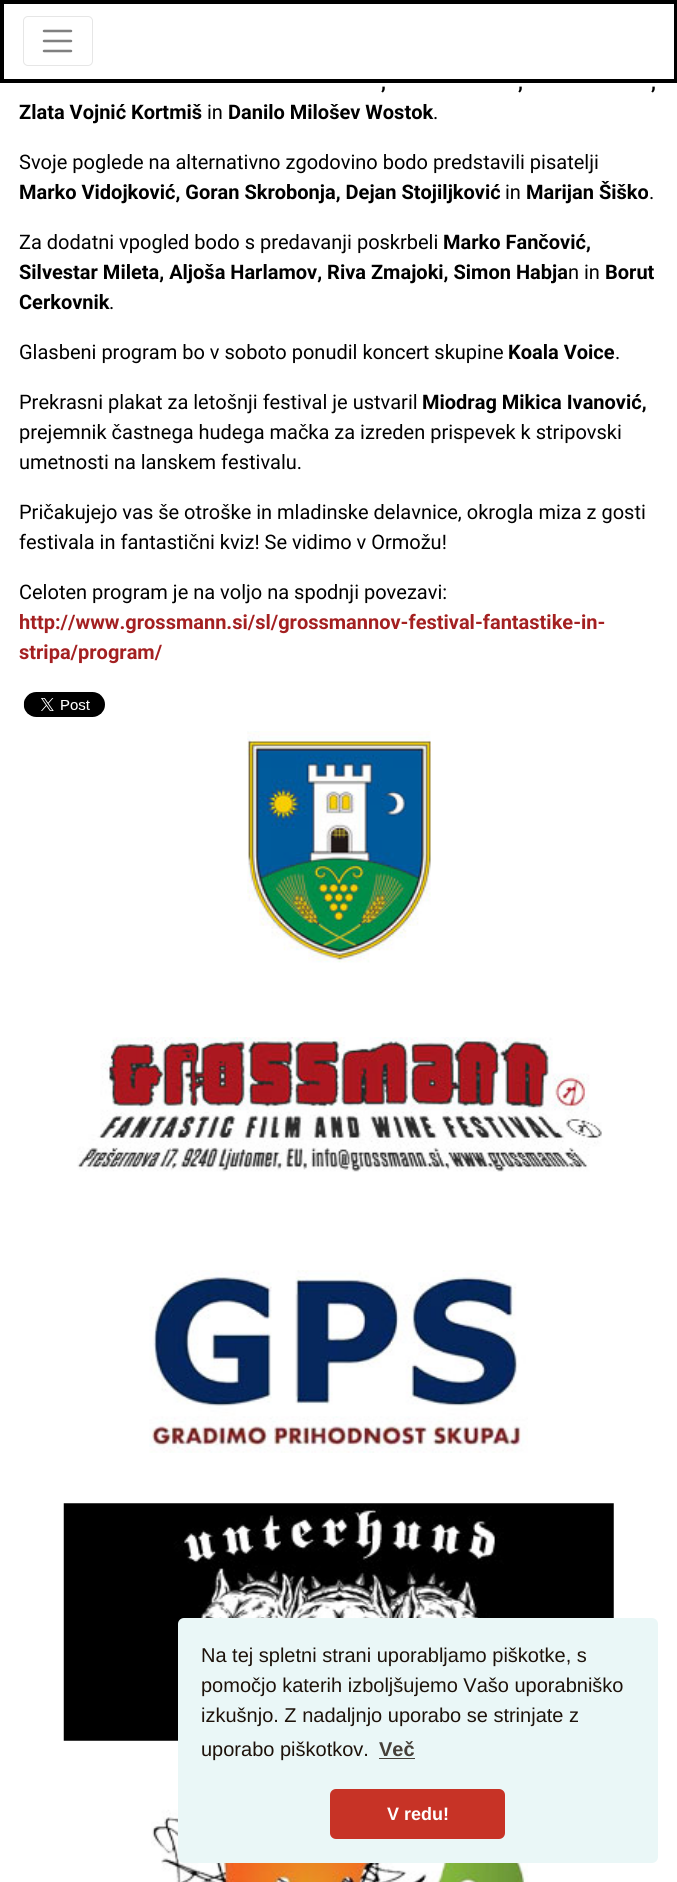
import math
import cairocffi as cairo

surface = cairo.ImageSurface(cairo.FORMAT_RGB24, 677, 1882)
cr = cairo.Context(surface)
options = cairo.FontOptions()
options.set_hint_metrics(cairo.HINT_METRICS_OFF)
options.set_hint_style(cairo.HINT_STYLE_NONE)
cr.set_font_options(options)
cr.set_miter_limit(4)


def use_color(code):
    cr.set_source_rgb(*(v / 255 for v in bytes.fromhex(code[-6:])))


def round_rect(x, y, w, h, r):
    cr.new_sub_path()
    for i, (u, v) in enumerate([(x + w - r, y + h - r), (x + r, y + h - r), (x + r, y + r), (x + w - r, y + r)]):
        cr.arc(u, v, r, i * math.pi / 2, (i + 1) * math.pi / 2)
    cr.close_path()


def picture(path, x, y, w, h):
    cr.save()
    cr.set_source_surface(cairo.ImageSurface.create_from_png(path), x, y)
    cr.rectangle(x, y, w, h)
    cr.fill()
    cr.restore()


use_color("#ffffff")
cr.paint()
cr.rectangle(2, 2, 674, 79)
use_color("#000000")
cr.set_line_width(4)
cr.stroke()
round_rect(23.5, 16.5, 69, 49, 4.5)
use_color("#e6e6e6")
cr.set_line_width(1)
cr.stroke()
cr.new_path()
cr.move_to(44, 31)
cr.line_to(71, 31)
cr.move_to(44, 41)
cr.line_to(71, 41)
cr.move_to(44, 51)
cr.line_to(71, 51)
use_color("#808080")
cr.set_line_width(2.5)
cr.set_line_cap(cairo.LINE_CAP_ROUND)
cr.stroke()
cr.select_font_face("Roboto", cairo.FONT_SLANT_NORMAL, cairo.FONT_WEIGHT_BOLD)
cr.set_font_size(20)
use_color("#000000")
cr.move_to(381, 89)
cr.show_text(",")
cr.move_to(518, 89)
cr.show_text(",")
cr.move_to(651, 89)
cr.show_text(",")
cr.move_to(19, 119)
cr.show_text("Zlata Vojnić Kortmiš")
cr.select_font_face("Roboto")
cr.move_to(207, 119)
cr.show_text("in")
cr.select_font_face("Roboto", cairo.FONT_SLANT_NORMAL, cairo.FONT_WEIGHT_BOLD)
cr.move_to(228, 119)
cr.show_text("Danilo Milošev Wostok")
cr.select_font_face("Roboto")
cr.move_to(433, 119)
cr.show_text(".")
cr.move_to(19, 169)
cr.show_text("Svoje poglede na alternativno zgodovino bodo predstavili pisatelji")
cr.select_font_face("Roboto", cairo.FONT_SLANT_NORMAL, cairo.FONT_WEIGHT_BOLD)
cr.move_to(19, 199)
cr.show_text("Marko Vidojković, Goran Skrobonja, Dejan Stojiljković")
cr.select_font_face("Roboto")
cr.move_to(505, 199)
cr.show_text("in")
cr.select_font_face("Roboto", cairo.FONT_SLANT_NORMAL, cairo.FONT_WEIGHT_BOLD)
cr.move_to(526, 199)
cr.show_text("Marijan Šiško")
cr.select_font_face("Roboto")
cr.move_to(649, 199)
cr.show_text(".")
cr.move_to(19, 249)
cr.show_text("Za dodatni vpogled bodo s predavanji poskrbeli")
cr.select_font_face("Roboto", cairo.FONT_SLANT_NORMAL, cairo.FONT_WEIGHT_BOLD)
cr.move_to(443, 249)
cr.show_text("Marko Fančović,")
cr.move_to(19, 279)
cr.show_text("Silvestar Mileta, Aljoša Harlamov, Riva Zmajoki, Simon Habja")
cr.select_font_face("Roboto")
cr.move_to(568, 279)
cr.show_text("n in")
cr.select_font_face("Roboto", cairo.FONT_SLANT_NORMAL, cairo.FONT_WEIGHT_BOLD)
cr.move_to(605, 279)
cr.show_text("Borut")
cr.move_to(19, 309)
cr.show_text("Cerkovnik")
cr.select_font_face("Roboto")
cr.move_to(109, 309)
cr.show_text(".")
cr.move_to(19, 359)
cr.show_text("Glasbeni program bo v soboto ponudil koncert skupine")
cr.select_font_face("Roboto", cairo.FONT_SLANT_NORMAL, cairo.FONT_WEIGHT_BOLD)
cr.move_to(508, 359)
cr.show_text("Koala Voice")
cr.select_font_face("Roboto")
cr.move_to(615, 359)
cr.show_text(".")
cr.move_to(19, 409)
cr.show_text("Prekrasni plakat za letošnji festival je ustvaril")
cr.select_font_face("Roboto", cairo.FONT_SLANT_NORMAL, cairo.FONT_WEIGHT_BOLD)
cr.move_to(422, 409)
cr.show_text("Miodrag Mikica Ivanović,")
cr.select_font_face("Roboto")
cr.move_to(19, 439)
cr.show_text("prejemnik častnega hudega mačka za izreden prispevek k stripovski")
cr.move_to(19, 469)
cr.show_text("umetnosti na lanskem festivalu.")
cr.move_to(19, 519)
cr.show_text("Pričakujejo vas še otroške in mladinske delavnice, okrogla miza z gosti")
cr.move_to(19, 549)
cr.show_text("festivala in fantastični kviz! Se vidimo v Ormožu!")
cr.move_to(19, 599)
cr.show_text("Celoten program je na voljo na spodnji povezavi:")
cr.select_font_face("Roboto", cairo.FONT_SLANT_NORMAL, cairo.FONT_WEIGHT_BOLD)
use_color("#a42021")
cr.move_to(19, 629)
cr.show_text("http://www.grossmann.si/sl/grossmannov-festival-fantastike-in-")
cr.move_to(19, 659)
cr.show_text("stripa/program/")
picture("img1.png", 23, 692, 82, 25)
picture("img2.png", 247, 731, 184, 232)
picture("img3.png", 77, 1037, 525, 135)
picture("img4.png", 149, 1270, 379, 183)
picture("img5.png", 63, 1503, 551, 238)
picture("img6.png", 151, 1775, 377, 107)
use_color("#eaf7f7")
round_rect(178, 1618, 480, 245, 6)
cr.fill()
cr.select_font_face("Liberation Sans")
use_color("#1d120a")
cr.move_to(201, 1662)
cr.show_text("Na tej spletni strani uporabljamo piškotke, s")
cr.move_to(201, 1692)
cr.show_text("pomočjo katerih izboljšujemo Vašo uporabniško")
cr.move_to(201, 1722)
cr.show_text("izkušnjo. Z nadaljnjo uporabo se strinjate z")
cr.move_to(201, 1756)
cr.show_text("uporabo piškotkov.")
cr.select_font_face("Liberation Sans", cairo.FONT_SLANT_NORMAL, cairo.FONT_WEIGHT_BOLD)
use_color("#464039")
cr.move_to(379, 1756)
cr.show_text("Več")
cr.rectangle(379, 1758, 36, 1)
cr.fill()
use_color("#c73326")
round_rect(330, 1789, 175, 50, 6)
cr.fill()
cr.set_font_size(18)
use_color("#ffffff")
cr.move_to(387, 1820)
cr.show_text("V redu!")
surface.write_to_png("result.png")
